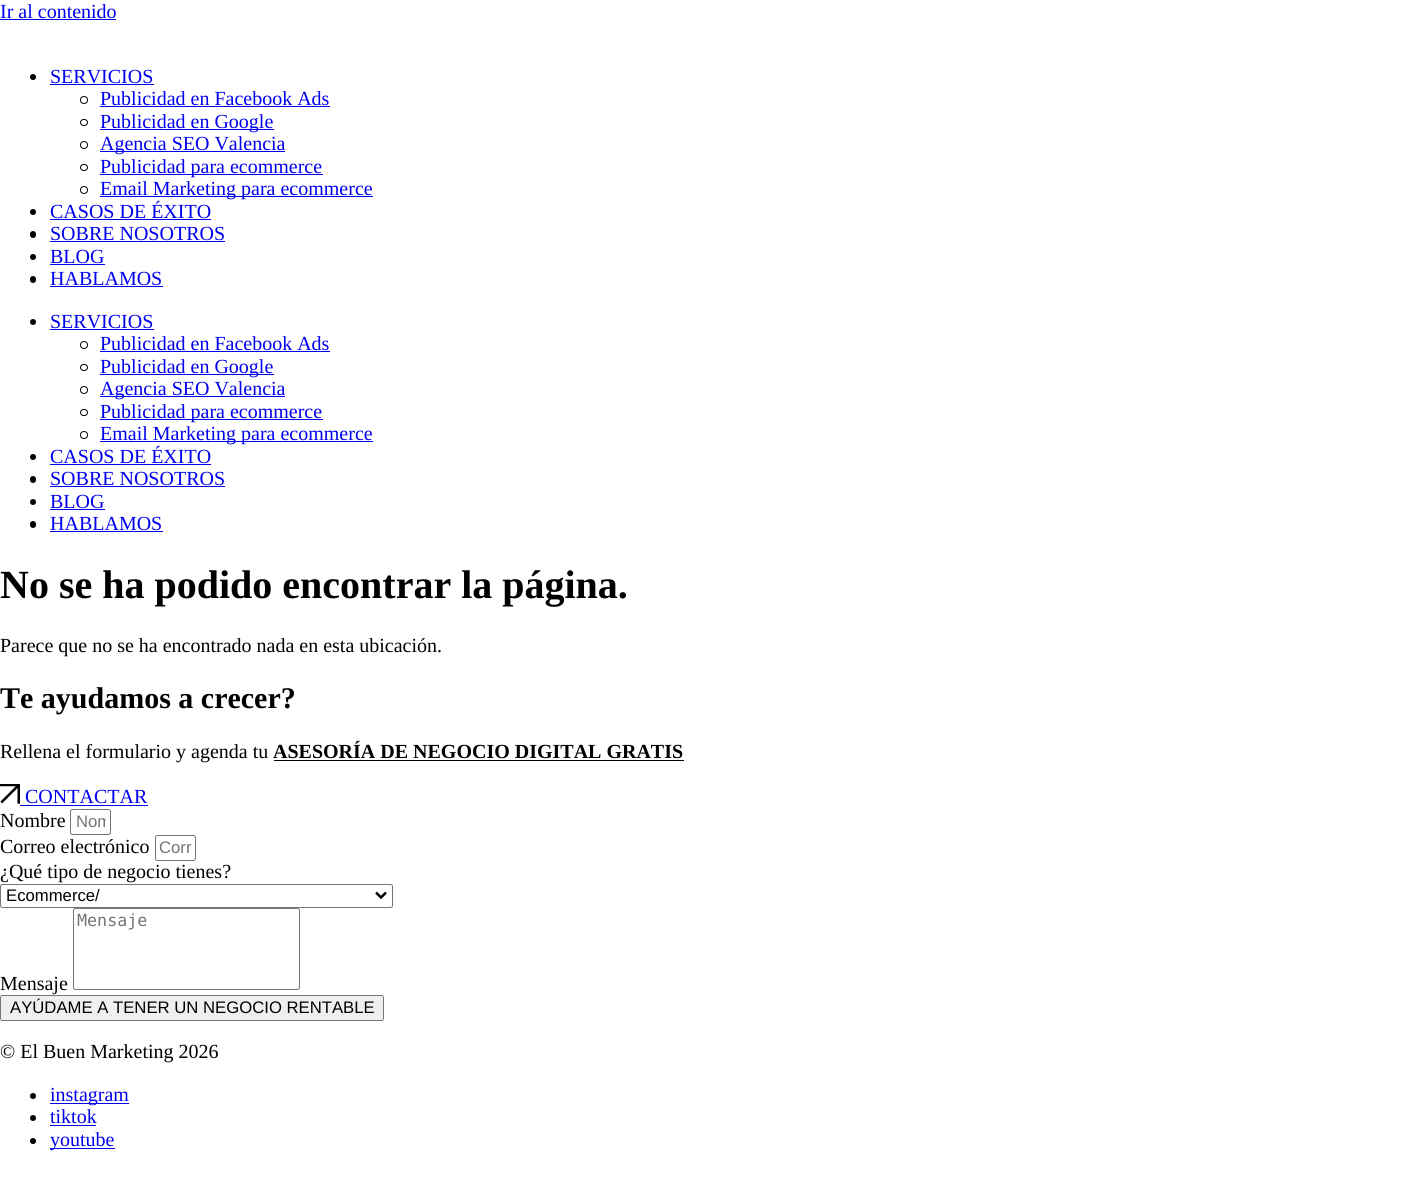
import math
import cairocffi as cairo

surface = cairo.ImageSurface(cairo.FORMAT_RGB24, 1413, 1185)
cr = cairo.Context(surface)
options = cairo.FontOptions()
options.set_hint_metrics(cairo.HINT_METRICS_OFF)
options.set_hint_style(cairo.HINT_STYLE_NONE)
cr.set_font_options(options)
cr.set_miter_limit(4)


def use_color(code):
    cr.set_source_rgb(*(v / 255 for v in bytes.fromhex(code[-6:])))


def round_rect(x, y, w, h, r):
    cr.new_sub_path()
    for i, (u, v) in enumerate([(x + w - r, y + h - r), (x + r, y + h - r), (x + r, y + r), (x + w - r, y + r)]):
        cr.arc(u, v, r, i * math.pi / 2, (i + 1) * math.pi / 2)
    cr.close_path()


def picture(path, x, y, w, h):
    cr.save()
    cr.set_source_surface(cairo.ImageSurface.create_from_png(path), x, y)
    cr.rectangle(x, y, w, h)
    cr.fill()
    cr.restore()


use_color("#ffffff")
cr.paint()
cr.select_font_face("Liberation Serif")
cr.set_font_size(20)
use_color("#0000ee")
cr.move_to(0, 18)
cr.show_text("Ir al contenido")
cr.rectangle(0, 19, 116, 1)
cr.fill()
use_color("#000000")
cr.arc(33, 77, 3, 0, 2 * math.pi)
cr.fill()
use_color("#0000ee")
cr.move_to(50, 83)
cr.show_text("SERVICIOS")
cr.rectangle(50, 84, 104, 1)
cr.fill()
cr.arc(84, 100, 3.5, 0, 2 * math.pi)
use_color("#000000")
cr.set_line_width(1)
cr.stroke()
use_color("#0000ee")
cr.move_to(100, 105)
cr.show_text("Publicidad en Facebook Ads")
cr.rectangle(100, 106, 230, 1)
cr.fill()
round_rect(80.5, 119.5, 7, 6, 3)
use_color("#000000")
cr.stroke()
use_color("#0000ee")
cr.rectangle(100, 129, 174, 1)
cr.fill()
cr.move_to(100, 128)
cr.show_text("Publicidad en Google")
cr.new_path()
cr.arc(84, 145, 3.5, 0, 2 * math.pi)
use_color("#000000")
cr.stroke()
use_color("#0000ee")
cr.rectangle(100, 151, 185, 1)
cr.fill()
cr.move_to(100, 150)
cr.show_text("Agencia SEO Valencia")
round_rect(80.5, 164.5, 7, 6, 3)
use_color("#000000")
cr.stroke()
use_color("#0000ee")
cr.rectangle(100, 174, 223, 1)
cr.fill()
cr.move_to(100, 173)
cr.show_text("Publicidad para ecommerce")
cr.new_path()
cr.arc(84, 190, 3.5, 0, 2 * math.pi)
use_color("#000000")
cr.stroke()
use_color("#0000ee")
cr.rectangle(100, 196, 273, 1)
cr.fill()
cr.move_to(100, 195)
cr.show_text("Email Marketing para ecommerce")
use_color("#000000")
cr.new_path()
cr.arc(33, 212, 3, 0, 2 * math.pi)
cr.fill()
use_color("#0000ee")
cr.move_to(50, 218)
cr.show_text("CASOS DE ÉXITO")
cr.rectangle(50, 219, 161, 1)
cr.fill()
use_color("#000000")
round_rect(30, 231, 6, 7, 3)
cr.fill()
use_color("#0000ee")
cr.move_to(50, 240)
cr.show_text("SOBRE NOSOTROS")
cr.rectangle(50, 241, 175, 1)
cr.fill()
use_color("#000000")
cr.arc(33, 257, 3, 0, 2 * math.pi)
cr.fill()
use_color("#0000ee")
cr.move_to(50, 263)
cr.show_text("BLOG")
cr.rectangle(50, 264, 55, 1)
cr.fill()
use_color("#000000")
round_rect(30, 276, 6, 7, 3)
cr.fill()
use_color("#0000ee")
cr.move_to(50, 285)
cr.show_text("HABLAMOS")
cr.rectangle(50, 286, 113, 1)
cr.fill()
use_color("#000000")
cr.arc(33, 322, 3, 0, 2 * math.pi)
cr.fill()
use_color("#0000ee")
cr.move_to(50, 328)
cr.show_text("SERVICIOS")
cr.rectangle(50, 329, 104, 1)
cr.fill()
cr.arc(84, 345, 3.5, 0, 2 * math.pi)
use_color("#000000")
cr.stroke()
use_color("#0000ee")
cr.move_to(100, 350)
cr.show_text("Publicidad en Facebook Ads")
cr.rectangle(100, 351, 230, 1)
cr.fill()
round_rect(80.5, 364.5, 7, 6, 3)
use_color("#000000")
cr.stroke()
use_color("#0000ee")
cr.rectangle(100, 374, 174, 1)
cr.fill()
cr.move_to(100, 373)
cr.show_text("Publicidad en Google")
cr.new_path()
cr.arc(84, 390, 3.5, 0, 2 * math.pi)
use_color("#000000")
cr.stroke()
use_color("#0000ee")
cr.rectangle(100, 396, 185, 1)
cr.fill()
cr.move_to(100, 395)
cr.show_text("Agencia SEO Valencia")
round_rect(80.5, 409.5, 7, 6, 3)
use_color("#000000")
cr.stroke()
use_color("#0000ee")
cr.rectangle(100, 419, 223, 1)
cr.fill()
cr.move_to(100, 418)
cr.show_text("Publicidad para ecommerce")
cr.new_path()
cr.arc(84, 435, 3.5, 0, 2 * math.pi)
use_color("#000000")
cr.stroke()
use_color("#0000ee")
cr.rectangle(100, 441, 273, 1)
cr.fill()
cr.move_to(100, 440)
cr.show_text("Email Marketing para ecommerce")
use_color("#000000")
cr.new_path()
cr.arc(33, 457, 3, 0, 2 * math.pi)
cr.fill()
use_color("#0000ee")
cr.move_to(50, 463)
cr.show_text("CASOS DE ÉXITO")
cr.rectangle(50, 464, 161, 1)
cr.fill()
use_color("#000000")
round_rect(30, 476, 6, 7, 3)
cr.fill()
use_color("#0000ee")
cr.move_to(50, 485)
cr.show_text("SOBRE NOSOTROS")
cr.rectangle(50, 486, 175, 1)
cr.fill()
use_color("#000000")
cr.arc(33, 502, 3, 0, 2 * math.pi)
cr.fill()
use_color("#0000ee")
cr.move_to(50, 508)
cr.show_text("BLOG")
cr.rectangle(50, 509, 55, 1)
cr.fill()
use_color("#000000")
round_rect(30, 521, 6, 7, 3)
cr.fill()
use_color("#0000ee")
cr.move_to(50, 530)
cr.show_text("HABLAMOS")
cr.rectangle(50, 531, 113, 1)
cr.fill()
cr.select_font_face("Liberation Serif", cairo.FONT_SLANT_NORMAL, cairo.FONT_WEIGHT_BOLD)
cr.set_font_size(40)
use_color("#000000")
cr.move_to(0, 598)
cr.show_text("No se ha podido encontrar la página.")
cr.select_font_face("Liberation Serif")
cr.set_font_size(20)
cr.move_to(0, 652)
cr.show_text("Parece que no se ha encontrado nada en esta ubicación.")
cr.select_font_face("Liberation Serif", cairo.FONT_SLANT_NORMAL, cairo.FONT_WEIGHT_BOLD)
cr.set_font_size(30)
cr.move_to(0, 708)
cr.show_text("Te ayudamos a crecer?")
cr.select_font_face("Liberation Serif")
cr.set_font_size(20)
cr.move_to(0, 758)
cr.show_text("Rellena el formulario y agenda tu")
cr.select_font_face("Liberation Serif", cairo.FONT_SLANT_NORMAL, cairo.FONT_WEIGHT_BOLD)
cr.move_to(273, 758)
cr.show_text("ASESORÍA DE NEGOCIO DIGITAL GRATIS")
cr.rectangle(274, 760, 410, 1)
cr.fill()
picture("img1.png", 0, 784, 20, 20)
cr.select_font_face("Liberation Serif")
use_color("#0000ee")
cr.move_to(25, 803)
cr.show_text("CONTACTAR")
cr.rectangle(20, 805, 128, 1)
cr.fill()
use_color("#000000")
cr.move_to(0, 827)
cr.show_text("Nombre")
round_rect(70.5, 809.5, 40, 25, 2)
use_color("#767676")
cr.stroke()
cr.save()
cr.rectangle(75, 813, 31, 18)
cr.clip()
cr.select_font_face("Liberation Sans")
cr.set_font_size(16.7)
use_color("#757575")
cr.move_to(76, 827)
cr.show_text("Nom")
cr.restore()
use_color("#000000")
cr.move_to(0, 853)
cr.show_text("Correo electrónico")
round_rect(155.5, 835.5, 40, 25, 2)
use_color("#767676")
cr.stroke()
cr.select_font_face("Liberation Sans")
cr.set_font_size(16.7)
use_color("#757575")
cr.move_to(159, 853)
cr.show_text("Corr")
cr.select_font_face("Liberation Serif")
cr.set_font_size(20)
use_color("#000000")
cr.move_to(0, 878)
cr.show_text("¿Qué tipo de negocio tienes?")
round_rect(0.5, 884.5, 392, 23, 2)
use_color("#767676")
cr.stroke()
cr.new_path()
cr.move_to(376, 892.5)
cr.line_to(381, 897.5)
cr.line_to(386, 892.5)
use_color("#000000")
cr.set_line_width(2.5)
cr.stroke()
cr.select_font_face("Liberation Sans")
cr.set_font_size(16.7)
cr.move_to(6, 901)
cr.show_text("Ecommerce/")
round_rect(73.5, 908.5, 226, 81, 2)
use_color("#767676")
cr.set_line_width(1)
cr.stroke()
cr.select_font_face("DejaVu Sans Mono")
use_color("#757575")
cr.move_to(77, 926)
cr.show_text("Mensaje")
cr.select_font_face("Liberation Serif")
cr.set_font_size(20)
use_color("#000000")
cr.move_to(0, 990)
cr.show_text("Mensaje")
use_color("#efefef")
round_rect(0.5, 995.5, 383, 25, 2)
cr.fill_preserve()
use_color("#767676")
cr.stroke()
cr.select_font_face("Liberation Sans")
cr.set_font_size(16.7)
use_color("#000000")
cr.move_to(10, 1013)
cr.show_text("AYÚDAME A TENER UN NEGOCIO RENTABLE")
cr.select_font_face("Liberation Serif")
cr.set_font_size(20)
cr.move_to(0, 1058)
cr.show_text("© El Buen Marketing 2026")
cr.new_path()
cr.arc(33, 1096, 3, 0, 2 * math.pi)
cr.fill()
use_color("#0000ee")
cr.rectangle(50, 1103, 79, 1)
cr.fill()
cr.move_to(50, 1101)
cr.show_text("instagram")
use_color("#000000")
cr.new_path()
cr.arc(33, 1118, 3, 0, 2 * math.pi)
cr.fill()
use_color("#0000ee")
cr.move_to(50, 1123)
cr.show_text("tiktok")
cr.rectangle(50, 1125, 46, 1)
cr.fill()
use_color("#000000")
cr.arc(33, 1141, 3, 0, 2 * math.pi)
cr.fill()
use_color("#0000ee")
cr.rectangle(50, 1148, 65, 1)
cr.fill()
cr.move_to(50, 1146)
cr.show_text("youtube")
surface.write_to_png("result.png")
